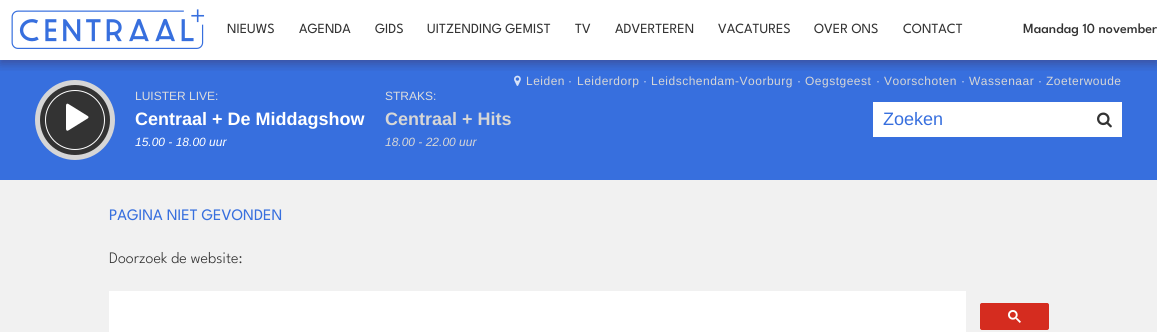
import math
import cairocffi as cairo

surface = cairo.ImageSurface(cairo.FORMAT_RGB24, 1157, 332)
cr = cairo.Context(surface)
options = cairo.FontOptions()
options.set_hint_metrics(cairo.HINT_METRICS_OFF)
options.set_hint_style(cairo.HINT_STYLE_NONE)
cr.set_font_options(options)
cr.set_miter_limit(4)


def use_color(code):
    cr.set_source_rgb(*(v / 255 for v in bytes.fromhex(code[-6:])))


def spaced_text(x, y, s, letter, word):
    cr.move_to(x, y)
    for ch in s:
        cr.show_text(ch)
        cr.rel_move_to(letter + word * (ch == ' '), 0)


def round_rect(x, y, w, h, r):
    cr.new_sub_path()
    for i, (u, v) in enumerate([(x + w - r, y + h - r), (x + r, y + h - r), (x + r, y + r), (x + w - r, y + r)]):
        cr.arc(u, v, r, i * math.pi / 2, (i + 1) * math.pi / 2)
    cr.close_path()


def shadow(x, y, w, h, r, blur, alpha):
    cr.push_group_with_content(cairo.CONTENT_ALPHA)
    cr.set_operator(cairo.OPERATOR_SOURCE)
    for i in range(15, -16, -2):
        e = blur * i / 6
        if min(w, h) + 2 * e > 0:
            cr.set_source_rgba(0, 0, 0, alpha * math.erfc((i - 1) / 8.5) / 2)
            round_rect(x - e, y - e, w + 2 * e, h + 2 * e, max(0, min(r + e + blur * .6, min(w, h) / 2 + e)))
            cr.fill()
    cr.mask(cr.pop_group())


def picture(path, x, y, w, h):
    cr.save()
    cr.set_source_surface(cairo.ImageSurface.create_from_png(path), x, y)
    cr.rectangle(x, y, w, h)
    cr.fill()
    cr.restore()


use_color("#ffffff")
cr.paint()
use_color("#376fde")
cr.rectangle(0, 60, 1157, 120)
cr.fill()
picture("img3.png", 514, 75, 7, 11)
cr.save()
cr.rectangle(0, 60, 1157, 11)
cr.clip()
use_color("#430b0a")
shadow(0, 4, 1157, 60, 0, 5, 0.3)
cr.restore()
picture("img1.png", 11, 9, 194, 40)
cr.select_font_face("League Spartan")
cr.set_font_size(14)
use_color("#333333")
cr.move_to(227, 33)
cr.show_text("NIEUWS")
cr.move_to(299, 33)
cr.show_text("AGENDA")
cr.move_to(375, 33)
cr.show_text("GIDS")
cr.move_to(427, 33)
cr.show_text("UITZENDING GEMIST")
cr.move_to(575, 33)
cr.show_text("TV")
cr.move_to(615, 33)
cr.show_text("ADVERTEREN")
cr.move_to(718, 33)
cr.show_text("VACATURES")
cr.move_to(814, 33)
cr.show_text("OVER ONS")
cr.move_to(903, 33)
cr.show_text("CONTACT")
cr.select_font_face("League Spartan Medium")
cr.move_to(1023, 33)
cr.show_text("Maandag 10 november")
use_color("#d6d6d6")
cr.new_path()
cr.arc(75, 120, 40, 0, 2 * math.pi)
cr.fill()
use_color("#333333")
cr.arc(75, 120, 35, 0, 2 * math.pi)
cr.fill()
use_color("#ffffff")
cr.arc(75, 120, 30, 0, 2 * math.pi)
cr.fill()
use_color("#333333")
cr.arc(75, 120, 29, 0, 2 * math.pi)
cr.fill()
picture("img2.png", 66, 103, 23, 28)
cr.select_font_face("Liberation Sans")
cr.set_font_size(12)
use_color("#dddddd")
cr.move_to(135, 100)
cr.show_text("LUISTER LIVE:")
cr.select_font_face("Liberation Sans", cairo.FONT_SLANT_NORMAL, cairo.FONT_WEIGHT_BOLD)
cr.set_font_size(18)
use_color("#ffffff")
cr.move_to(135, 125)
cr.show_text("Centraal + De Middagshow")
cr.select_font_face("Liberation Sans", cairo.FONT_SLANT_ITALIC)
cr.set_font_size(12)
cr.move_to(135, 146)
cr.show_text("15.00 - 18.00 uur")
cr.select_font_face("Liberation Sans")
use_color("#dddddd")
cr.move_to(385, 100)
cr.show_text("STRAKS:")
cr.select_font_face("Liberation Sans", cairo.FONT_SLANT_NORMAL, cairo.FONT_WEIGHT_BOLD)
cr.set_font_size(18)
use_color("#d6d6d6")
cr.move_to(385, 125)
cr.show_text("Centraal + Hits")
cr.select_font_face("Liberation Sans", cairo.FONT_SLANT_ITALIC)
cr.set_font_size(12)
cr.move_to(385, 146)
cr.show_text("18.00 - 22.00 uur")
cr.select_font_face("Liberation Sans")
spaced_text(526, 85, "Leiden", 0.5, 0)
use_color("#d7e2f8")
spaced_text(568, 85, "·", 0.5, 0)
use_color("#d6d6d6")
spaced_text(577, 85, "Leiderdorp", 0.5, 0)
use_color("#d7e2f8")
spaced_text(643, 85, "·", 0.5, 0)
use_color("#d6d6d6")
spaced_text(651, 85, "Leidschendam-Voorburg", 0.5, 0)
use_color("#d7e2f8")
spaced_text(797, 85, "·", 0.5, 0)
use_color("#d6d6d6")
spaced_text(805, 85, "Oegstgeest", 0.5, 0)
use_color("#d7e2f8")
spaced_text(876, 85, "·", 0.5, 0)
use_color("#d6d6d6")
spaced_text(884, 85, "Voorschoten", 0.5, 0)
use_color("#d7e2f8")
spaced_text(961, 85, "·", 0.5, 0)
use_color("#d6d6d6")
spaced_text(969, 85, "Wassenaar", 0.5, 0)
use_color("#d7e2f8")
spaced_text(1038, 85, "·", 0.5, 0)
use_color("#d6d6d6")
spaced_text(1046, 85, "Zoeterwoude", 0.5, 0)
use_color("#ffffff")
cr.rectangle(873, 102, 249, 35)
cr.fill()
cr.set_font_size(18)
use_color("#376fde")
cr.move_to(883, 125)
cr.show_text("Zoeken")
picture("img4.png", 1097, 112, 15, 16)
use_color("#f1f1f1")
cr.rectangle(0, 180, 1157, 152)
cr.fill()
cr.select_font_face("League Spartan")
cr.set_font_size(16)
use_color("#376fde")
cr.move_to(109, 220)
cr.show_text("PAGINA NIET GEVONDEN")
cr.select_font_face("League Spartan Light")
use_color("#333333")
cr.move_to(109, 263)
cr.show_text("Doorzoek de website:")
use_color("#ffffff")
cr.rectangle(109, 291, 857, 41)
cr.fill()
use_color("#d52c1f")
round_rect(980.5, 303.5, 68, 26, 1.5)
cr.fill_preserve()
cr.set_line_width(1)
cr.stroke()
picture("img5.png", 1008, 310, 13, 13)
surface.write_to_png("result.png")
